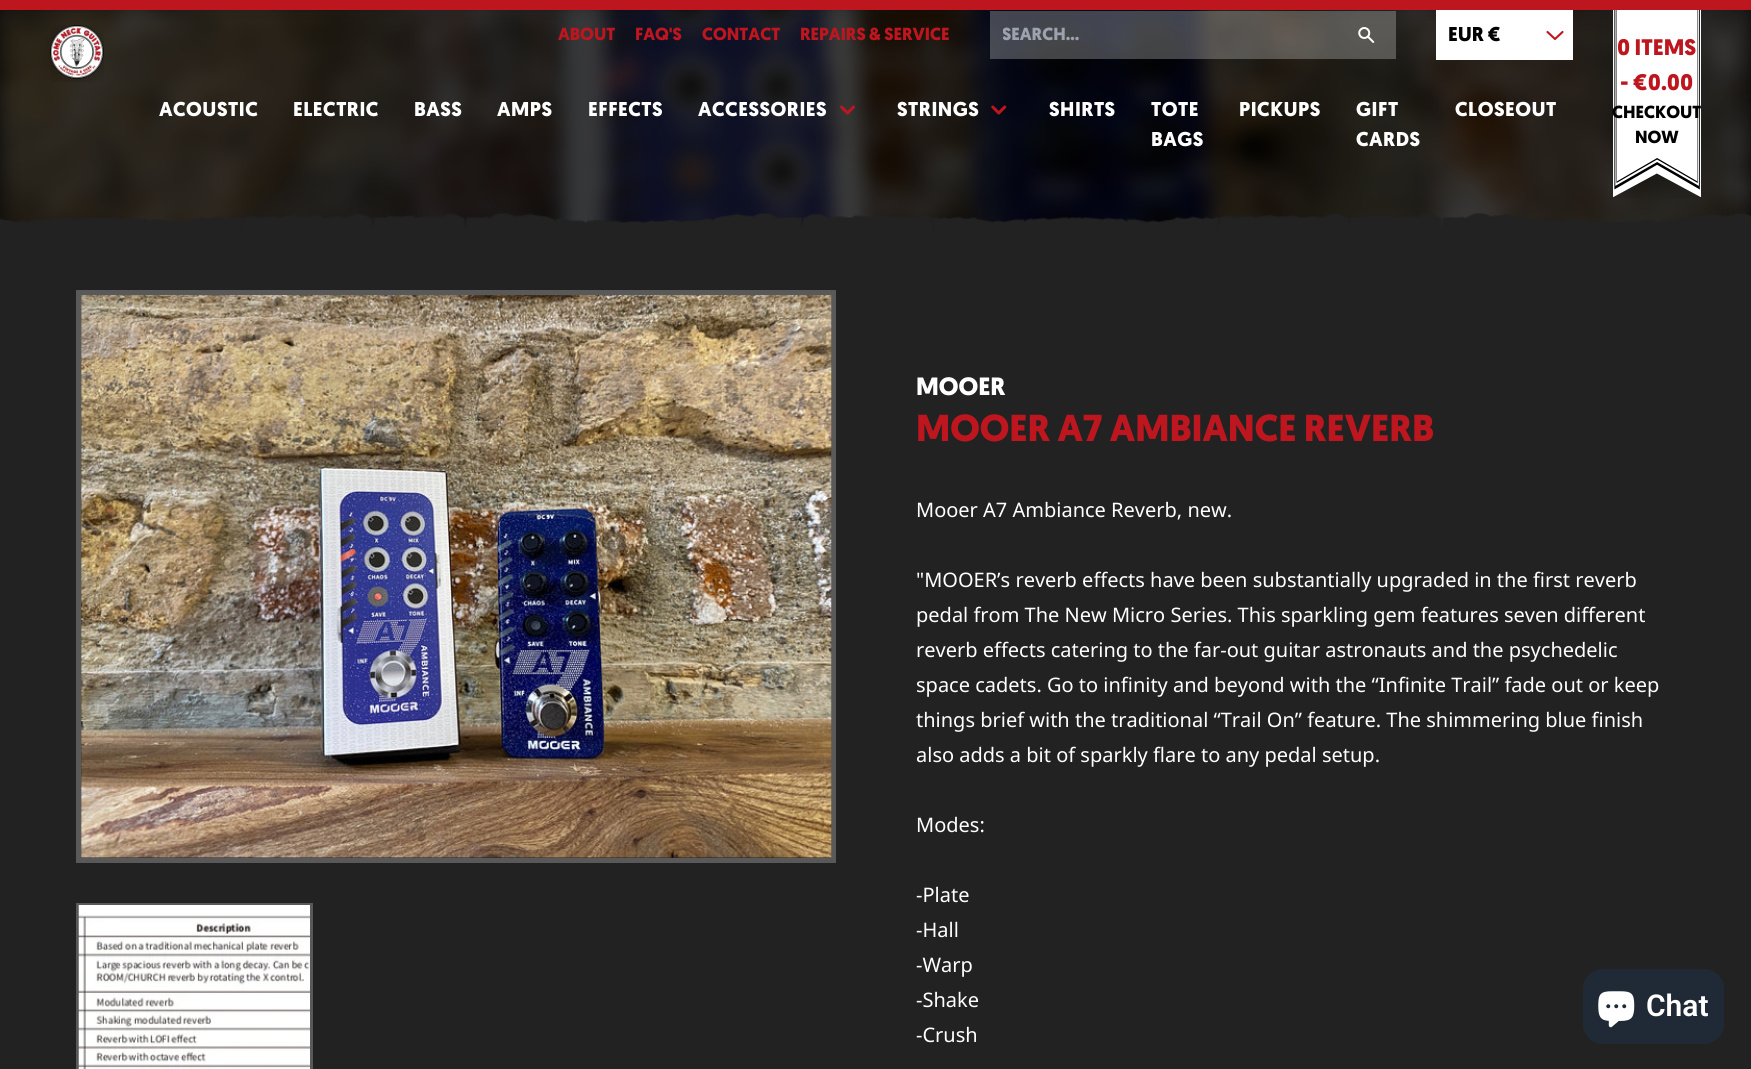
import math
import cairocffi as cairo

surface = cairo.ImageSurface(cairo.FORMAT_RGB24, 1751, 1069)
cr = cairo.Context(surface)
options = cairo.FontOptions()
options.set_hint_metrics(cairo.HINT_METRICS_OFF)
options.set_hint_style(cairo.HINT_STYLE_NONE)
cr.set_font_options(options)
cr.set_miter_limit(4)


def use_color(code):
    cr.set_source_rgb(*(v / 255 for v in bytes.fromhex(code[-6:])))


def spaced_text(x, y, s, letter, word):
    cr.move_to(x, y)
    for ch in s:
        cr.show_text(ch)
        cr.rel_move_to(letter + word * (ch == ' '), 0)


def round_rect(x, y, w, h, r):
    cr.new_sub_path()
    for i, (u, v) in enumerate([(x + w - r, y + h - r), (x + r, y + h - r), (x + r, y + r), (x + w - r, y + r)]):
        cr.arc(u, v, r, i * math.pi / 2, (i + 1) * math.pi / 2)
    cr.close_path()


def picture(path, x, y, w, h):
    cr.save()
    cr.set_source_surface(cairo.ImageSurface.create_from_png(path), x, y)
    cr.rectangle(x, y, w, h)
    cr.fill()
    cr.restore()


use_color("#222222")
cr.paint()
use_color("#bd161f")
cr.rectangle(0, 0, 1751, 10)
cr.fill()
use_color("#090909")
cr.rectangle(0, 10, 1751, 225)
cr.fill()
picture("img6.png", 0, 10, 1751, 225)
picture("img1.png", 50, 25, 54, 57)
cr.select_font_face("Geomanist", cairo.FONT_SLANT_NORMAL, cairo.FONT_WEIGHT_BOLD)
cr.set_font_size(17.5)
use_color("#bd161f")
cr.move_to(558, 40)
cr.show_text("ABOUT")
cr.move_to(635, 40)
cr.show_text("FAQ'S")
cr.move_to(702, 40)
cr.show_text("CONTACT")
cr.move_to(800, 40)
cr.show_text("REPAIRS & SERVICE")
cr.set_source_rgba(1, 1, 1, 0.25)
cr.rectangle(990, 11, 406, 48)
cr.fill()
cr.save()
cr.rectangle(1003, 23, 381, 23)
cr.clip()
use_color("#9ca3af")
cr.move_to(1002, 40)
cr.show_text("SEARCH...")
cr.restore()
picture("img2.png", 1358, 27, 17, 16)
use_color("#ffffff")
cr.rectangle(1436, 10, 137, 50)
cr.fill()
cr.new_path()
cr.move_to(1562.5, 32)
cr.line_to(1555, 39)
cr.line_to(1547.5, 32)
use_color("#bd161f")
cr.set_line_width(2.1)
cr.set_line_cap(cairo.LINE_CAP_ROUND)
cr.set_line_join(cairo.LINE_JOIN_ROUND)
cr.stroke()
cr.set_font_size(20)
use_color("#000000")
cr.move_to(1448, 41)
cr.show_text("EUR €")
use_color("#ffffff")
spaced_text(159, 116, "ACOUSTIC", 0.5, 0)
spaced_text(293, 116, "ELECTRIC", 0.5, 0)
spaced_text(414, 116, "BASS", 0.5, 0)
spaced_text(497, 116, "AMPS", 0.5, 0)
spaced_text(588, 116, "EFFECTS", 0.5, 0)
spaced_text(698, 116, "ACCESSORIES", 0.5, 0)
picture("img3.png", 840, 105, 15, 10)
spaced_text(897, 116, "STRINGS", 0.5, 0)
picture("img4.png", 991, 105, 16, 10)
spaced_text(1049, 116, "SHIRTS", 0.5, 0)
spaced_text(1151, 116, "TOTE", 0.5, 0)
spaced_text(1151, 146, "BAGS", 0.5, 0)
spaced_text(1239, 116, "PICKUPS", 0.5, 0)
spaced_text(1356, 116, "GIFT", 0.5, 0)
spaced_text(1356, 146, "CARDS", 0.5, 0)
spaced_text(1455, 116, "CLOSEOUT", 0.5, 0)
picture("img5.png", 1612, 10, 89, 188)
cr.set_font_size(22.5)
use_color("#bd161f")
cr.move_to(1617, 55)
cr.show_text("0 ITEMS")
cr.move_to(1620, 90)
cr.show_text("- €0.00")
cr.set_font_size(17.5)
use_color("#000000")
cr.move_to(1612, 118)
cr.show_text("CHECKOUT")
cr.move_to(1635, 143)
cr.show_text("NOW")
picture("img7.png", 0, 213, 1751, 37)
cr.rectangle(78.5, 292.5, 755, 568)
use_color("#595959")
cr.set_line_width(5)
cr.set_line_cap(cairo.LINE_CAP_BUTT)
cr.set_line_join(cairo.LINE_JOIN_MITER)
cr.stroke()
picture("img8.png", 81, 295, 751, 563)
cr.rectangle(77.5, 904.5, 234, 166)
cr.set_line_width(3)
cr.stroke()
picture("img9.png", 78, 905, 232, 164)
cr.set_font_size(25)
use_color("#ffffff")
cr.move_to(916, 395)
cr.show_text("MOOER")
cr.set_font_size(37.5)
use_color("#bd161f")
cr.move_to(916, 441)
cr.show_text("MOOER A7 AMBIANCE REVERB")
cr.select_font_face("Noto Sans")
cr.set_font_size(20)
use_color("#ffffff")
cr.move_to(916, 517)
cr.show_text("Mooer A7 Ambiance Reverb, new.")
cr.move_to(916, 587)
cr.show_text("\"MOOER’s reverb effects have been substantially upgraded in the first reverb")
cr.move_to(916, 622)
cr.show_text("pedal from The New Micro Series. This sparkling gem features seven different")
cr.move_to(916, 657)
cr.show_text("reverb effects catering to the far-out guitar astronauts and the psychedelic")
cr.move_to(916, 692)
cr.show_text("space cadets. Go to infinity and beyond with the “Infinite Trail” fade out or keep")
cr.move_to(916, 727)
cr.show_text("things brief with the traditional “Trail On” feature. The shimmering blue finish")
cr.move_to(916, 762)
cr.show_text("also adds a bit of sparkly flare to any pedal setup.")
cr.move_to(916, 832)
cr.show_text("Modes:")
cr.move_to(916, 902)
cr.show_text("-Plate")
cr.move_to(916, 937)
cr.show_text("-Hall")
cr.move_to(916, 972)
cr.show_text("-Warp")
cr.move_to(916, 1007)
cr.show_text("-Shake")
cr.move_to(916, 1042)
cr.show_text("-Crush")
use_color("#202a36")
round_rect(1583, 969, 141, 75, 20)
cr.fill()
picture("img10.png", 1598, 991, 37, 37)
cr.select_font_face("Roboto SemiBold")
cr.set_font_size(30)
use_color("#ffffff")
cr.move_to(1646, 1016)
cr.show_text("Chat")
surface.write_to_png("result.png")
